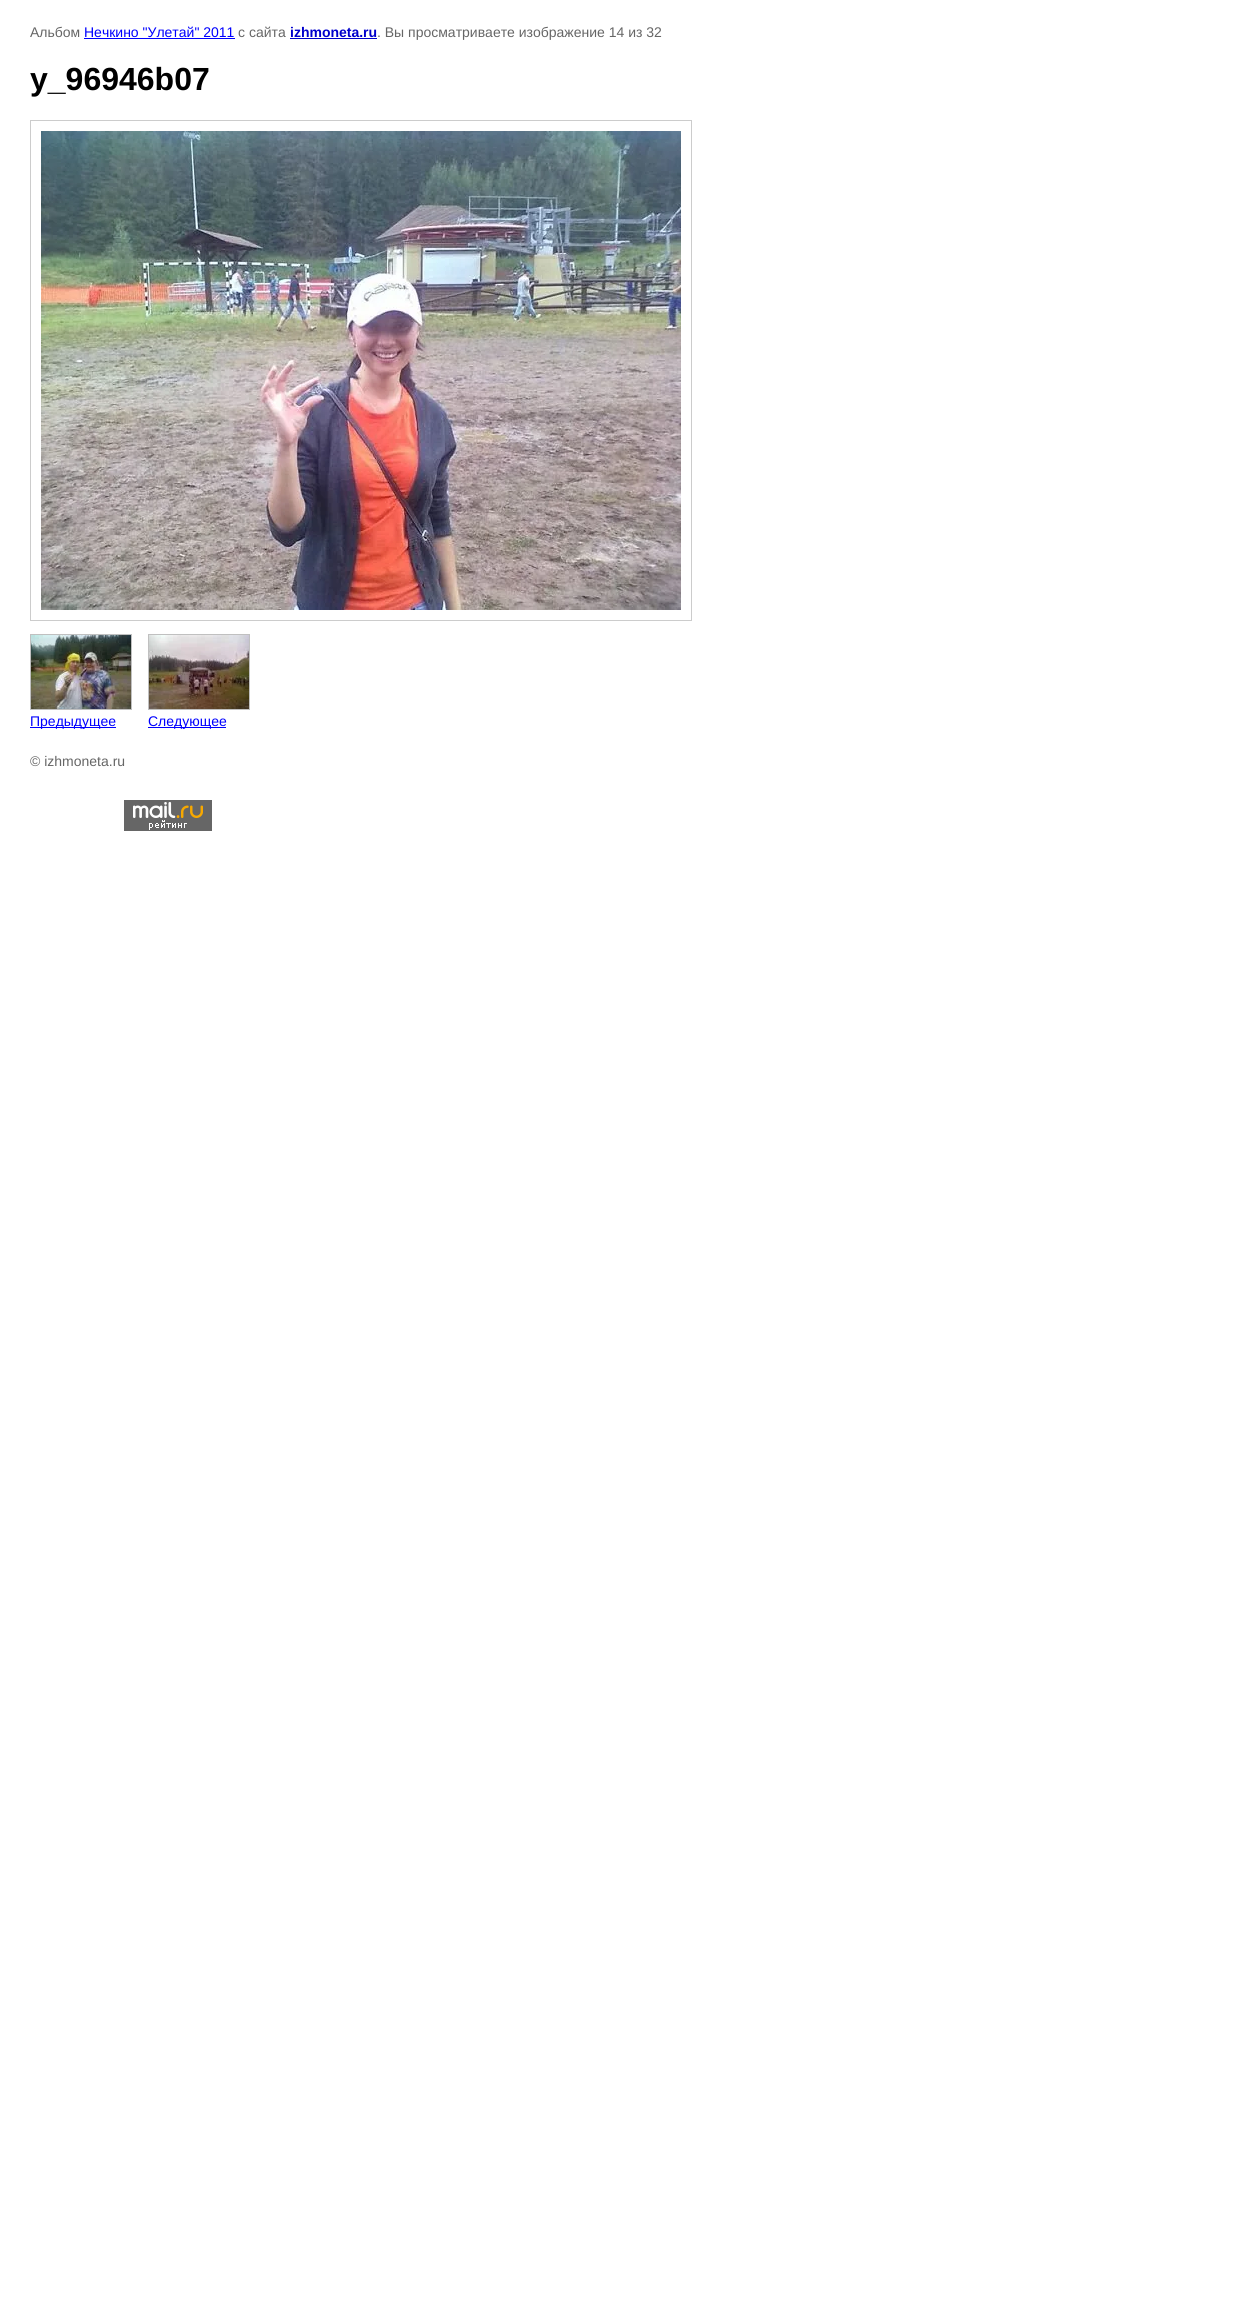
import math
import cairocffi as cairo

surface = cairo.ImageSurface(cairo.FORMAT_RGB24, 1252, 2303)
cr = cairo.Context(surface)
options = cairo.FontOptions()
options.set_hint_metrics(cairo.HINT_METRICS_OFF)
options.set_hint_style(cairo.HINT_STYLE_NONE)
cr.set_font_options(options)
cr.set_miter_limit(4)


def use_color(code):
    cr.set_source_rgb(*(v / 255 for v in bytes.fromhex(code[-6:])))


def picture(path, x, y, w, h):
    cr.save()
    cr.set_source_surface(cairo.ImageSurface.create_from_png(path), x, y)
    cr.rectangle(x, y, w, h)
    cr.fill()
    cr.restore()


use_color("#ffffff")
cr.paint()
cr.select_font_face("Liberation Sans")
cr.set_font_size(14)
use_color("#666666")
cr.move_to(30, 37)
cr.show_text("Альбом")
use_color("#0000ff")
cr.move_to(84, 37)
cr.show_text("Нечкино \"Улетай\" 2011")
cr.rectangle(84, 38, 151, 1)
cr.fill()
use_color("#666666")
cr.move_to(238, 37)
cr.show_text("с сайта")
cr.select_font_face("Liberation Sans", cairo.FONT_SLANT_NORMAL, cairo.FONT_WEIGHT_BOLD)
use_color("#0000cc")
cr.move_to(290, 37)
cr.show_text("izhmoneta.ru")
cr.rectangle(290, 38, 87, 1)
cr.fill()
cr.select_font_face("Liberation Sans")
use_color("#666666")
cr.move_to(377, 37)
cr.show_text(". Вы просматриваете изображение 14 из 32")
cr.select_font_face("Liberation Sans", cairo.FONT_SLANT_NORMAL, cairo.FONT_WEIGHT_BOLD)
cr.set_font_size(32)
use_color("#000000")
cr.move_to(30, 90)
cr.show_text("y_96946b07")
cr.rectangle(30.5, 120.5, 661, 500)
use_color("#cccccc")
cr.set_line_width(1)
cr.stroke()
picture("img1.png", 41, 131, 640, 479)
cr.rectangle(30.5, 634.5, 101, 75)
use_color("#c0c0c0")
cr.stroke()
picture("img2.png", 31, 635, 100, 74)
use_color("#0000ff")
cr.rectangle(30, 727, 86, 1)
cr.fill()
cr.select_font_face("Liberation Sans")
cr.set_font_size(14)
cr.move_to(30, 726)
cr.show_text("Предыдущее")
cr.rectangle(148.5, 634.5, 101, 75)
use_color("#c0c0c0")
cr.stroke()
picture("img3.png", 149, 635, 100, 74)
use_color("#0000ff")
cr.rectangle(148, 727, 78, 1)
cr.fill()
cr.move_to(148, 726)
cr.show_text("Следующее")
use_color("#666666")
cr.move_to(30, 766)
cr.show_text("© izhmoneta.ru")
picture("img4.png", 124, 800, 88, 31)
surface.write_to_png("result.png")
